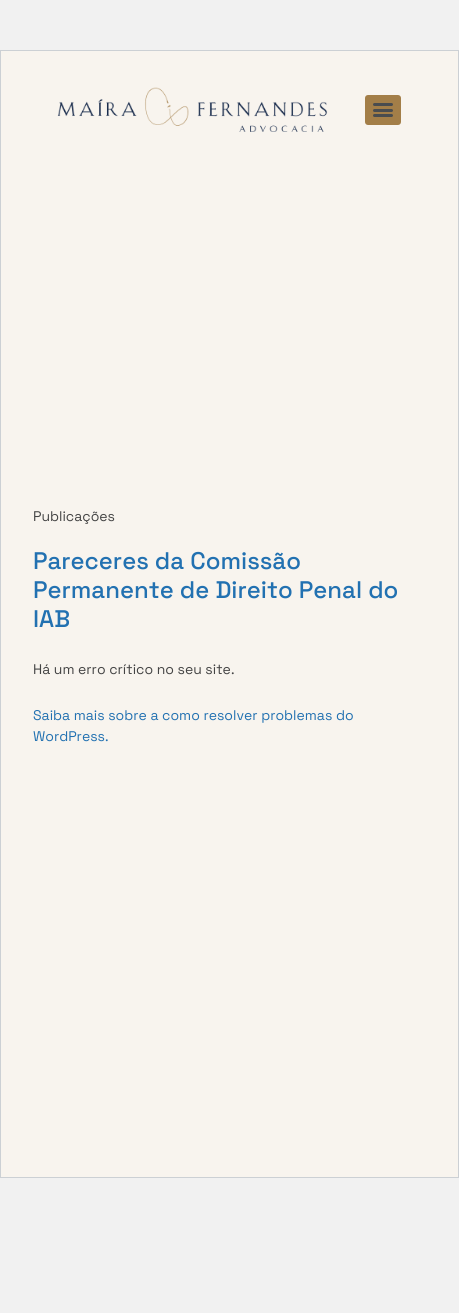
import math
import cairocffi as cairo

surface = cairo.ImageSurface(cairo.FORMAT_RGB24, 459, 1313)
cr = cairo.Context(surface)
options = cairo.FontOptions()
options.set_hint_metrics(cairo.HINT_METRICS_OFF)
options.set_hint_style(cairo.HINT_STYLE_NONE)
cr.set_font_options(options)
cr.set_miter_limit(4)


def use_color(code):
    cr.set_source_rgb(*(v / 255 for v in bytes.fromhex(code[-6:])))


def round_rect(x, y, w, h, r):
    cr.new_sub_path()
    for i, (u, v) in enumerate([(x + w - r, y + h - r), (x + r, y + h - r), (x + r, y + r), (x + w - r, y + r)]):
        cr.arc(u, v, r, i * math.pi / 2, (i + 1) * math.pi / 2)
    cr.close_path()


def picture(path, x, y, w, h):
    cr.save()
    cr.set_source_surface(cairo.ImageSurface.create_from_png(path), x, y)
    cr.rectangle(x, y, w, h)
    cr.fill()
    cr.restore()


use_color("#f1f1f1")
cr.paint()
use_color("#f8f4ee")
cr.rectangle(0.5, 50.5, 458, 1127)
cr.fill_preserve()
use_color("#ccd0d4")
cr.set_line_width(1)
cr.stroke()
picture("img1.png", 57, 87, 271, 45)
use_color("#a37e48")
round_rect(365, 95, 36, 30, 3)
cr.fill()
use_color("#494c4f")
round_rect(373, 109, 20, 3, 1.5)
cr.fill()
round_rect(373, 103, 20, 3, 1.5)
cr.fill()
round_rect(373, 114, 20, 3, 1.5)
cr.fill()
cr.select_font_face("Space Grotesk")
cr.set_font_size(14)
use_color("#444444")
cr.move_to(33, 521)
cr.show_text("Publicações")
cr.select_font_face("Space Grotesk Medium")
cr.set_font_size(24)
use_color("#2271b1")
cr.move_to(33, 569)
cr.show_text("Pareceres da Comissão")
cr.move_to(33, 598)
cr.show_text("Permanente de Direito Penal do")
cr.move_to(33, 627)
cr.show_text("IAB")
cr.select_font_face("Space Grotesk")
cr.set_font_size(14)
use_color("#444444")
cr.move_to(33, 674)
cr.show_text("Há um erro crítico no seu site.")
use_color("#2271b1")
cr.move_to(33, 720)
cr.show_text("Saiba mais sobre a como resolver problemas do")
cr.move_to(33, 741)
cr.show_text("WordPress.")
surface.write_to_png("result.png")
